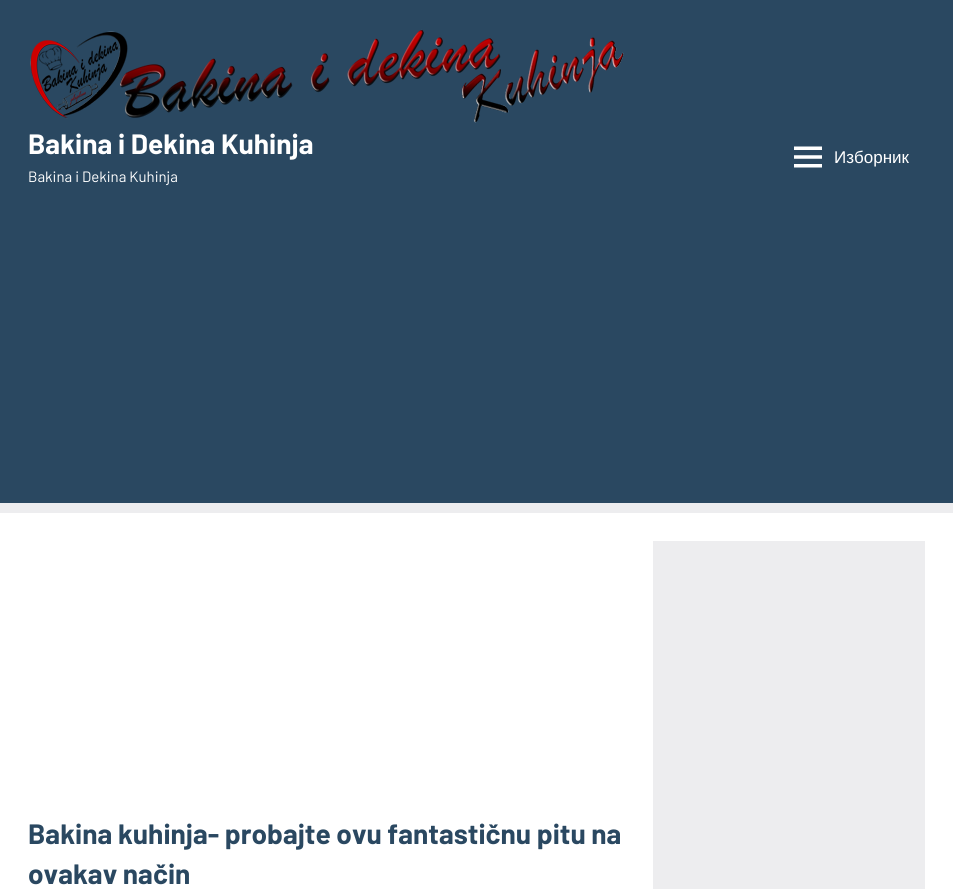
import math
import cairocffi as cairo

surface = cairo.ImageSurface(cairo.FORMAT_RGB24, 953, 889)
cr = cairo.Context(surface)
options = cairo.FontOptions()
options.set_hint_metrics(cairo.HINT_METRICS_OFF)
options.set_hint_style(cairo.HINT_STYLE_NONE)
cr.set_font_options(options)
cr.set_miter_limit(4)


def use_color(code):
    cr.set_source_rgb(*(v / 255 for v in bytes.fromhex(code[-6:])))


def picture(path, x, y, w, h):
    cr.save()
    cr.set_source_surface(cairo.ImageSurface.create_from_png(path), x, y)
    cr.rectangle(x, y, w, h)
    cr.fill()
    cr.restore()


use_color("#ededef")
cr.paint()
use_color("#2a4861")
cr.rectangle(0, 0, 953, 503)
cr.fill()
picture("img1.png", 30, 29, 594, 94)
cr.select_font_face("Barlow", cairo.FONT_SLANT_NORMAL, cairo.FONT_WEIGHT_BOLD)
cr.set_font_size(28)
use_color("#ffffff")
cr.move_to(28, 154)
cr.show_text("Bakina i Dekina Kuhinja")
cr.select_font_face("Barlow")
cr.set_font_size(15)
cr.move_to(28, 182)
cr.show_text("Bakina i Dekina Kuhinja")
picture("img2.png", 794, 146, 28, 22)
cr.select_font_face("Liberation Sans")
cr.set_font_size(17)
cr.move_to(834, 163)
cr.show_text("Изборник")
cr.rectangle(0, 513, 953, 376)
cr.fill()
cr.select_font_face("Barlow", cairo.FONT_SLANT_NORMAL, cairo.FONT_WEIGHT_BOLD)
cr.set_font_size(28)
use_color("#2a4861")
cr.move_to(28, 844)
cr.show_text("Bakina kuhinja- probajte ovu fantastičnu pitu na")
cr.move_to(28, 884)
cr.show_text("ovakav način")
use_color("#ededef")
cr.rectangle(653, 541, 272, 348)
cr.fill()
surface.write_to_png("result.png")
